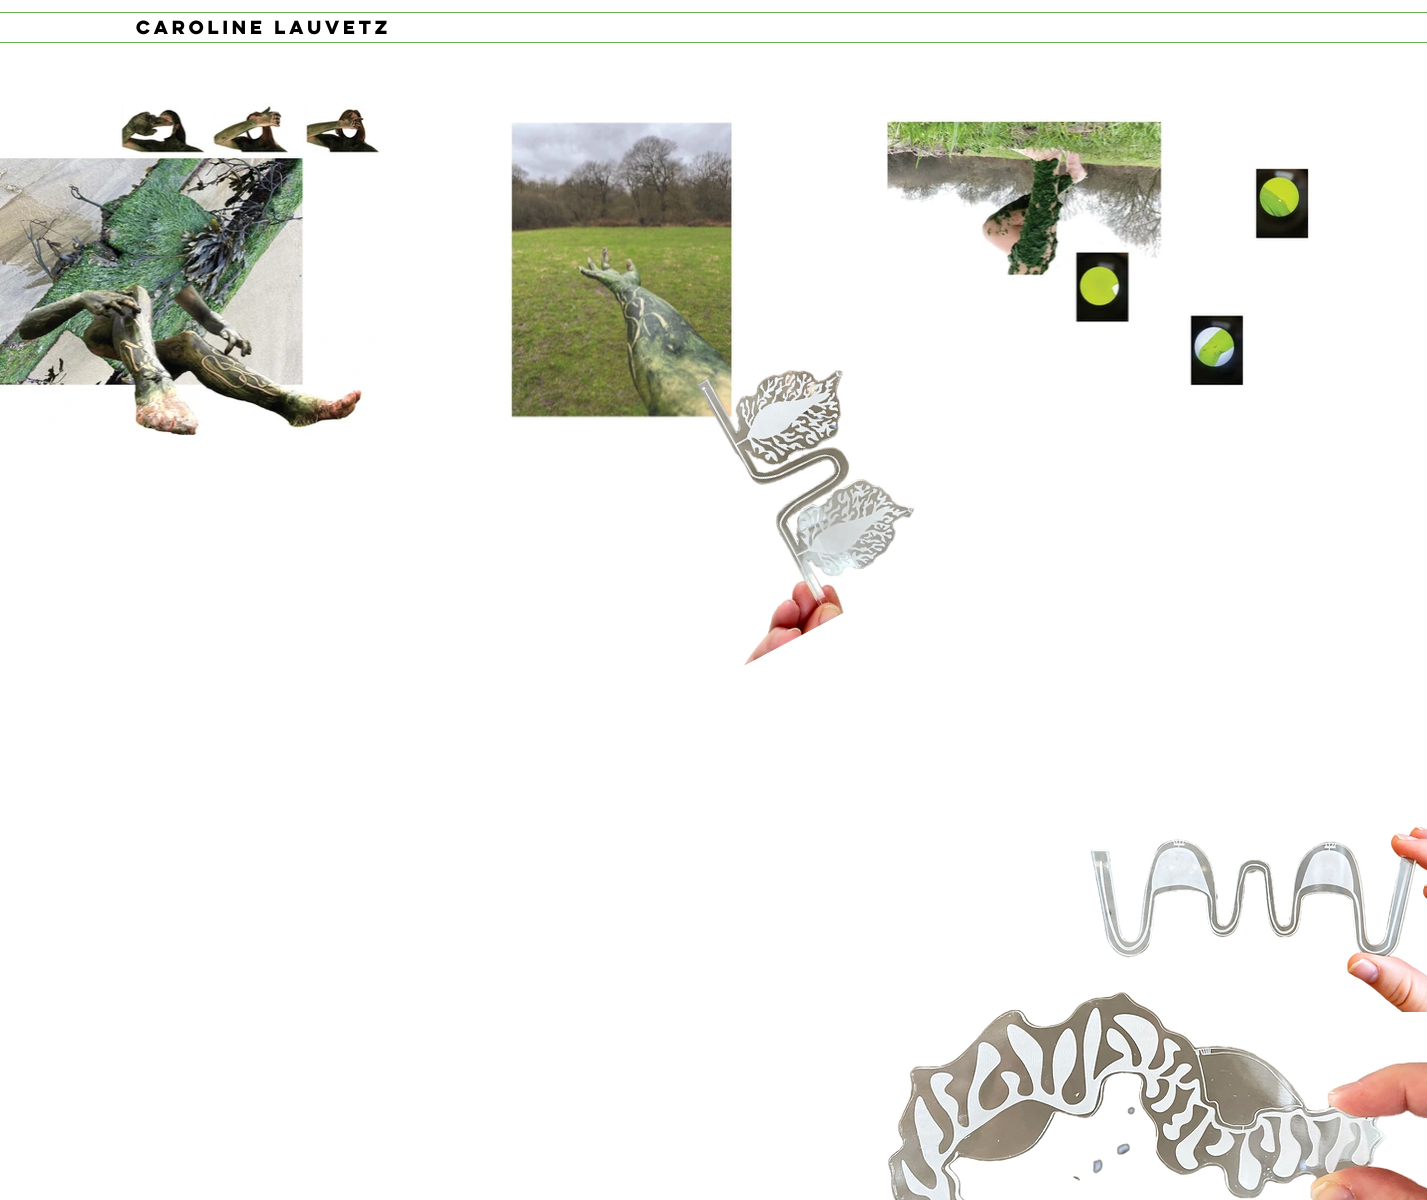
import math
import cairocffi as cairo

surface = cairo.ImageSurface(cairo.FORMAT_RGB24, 1427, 1200)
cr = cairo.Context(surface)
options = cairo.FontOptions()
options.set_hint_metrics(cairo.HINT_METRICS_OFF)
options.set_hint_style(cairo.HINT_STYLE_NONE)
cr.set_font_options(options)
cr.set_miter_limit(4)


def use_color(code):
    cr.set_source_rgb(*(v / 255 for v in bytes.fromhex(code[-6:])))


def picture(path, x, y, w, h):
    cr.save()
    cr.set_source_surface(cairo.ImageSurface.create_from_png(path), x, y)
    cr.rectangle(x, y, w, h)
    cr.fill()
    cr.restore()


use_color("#ffffff")
cr.paint()
use_color("#68b04d")
cr.rectangle(0, 12, 1427, 1)
cr.fill()
cr.select_font_face("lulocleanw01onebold", cairo.FONT_SLANT_NORMAL, cairo.FONT_WEIGHT_BOLD)
cr.set_font_size(17)
use_color("#000000")
cr.move_to(136, 34)
cr.show_text("caroline lauvetz")
use_color("#68b04d")
cr.rectangle(0, 42, 1427, 1)
cr.fill()
picture("img1.png", 0, 103, 379, 333)
picture("img2.png", 509, 122, 227, 298)
picture("img3.png", 886, 119, 426, 268)
picture("img4.png", 696, 369, 219, 297)
picture("img6.png", 888, 992, 539, 208)
picture("img5.png", 1090, 826, 337, 186)
surface.write_to_png("result.png")
